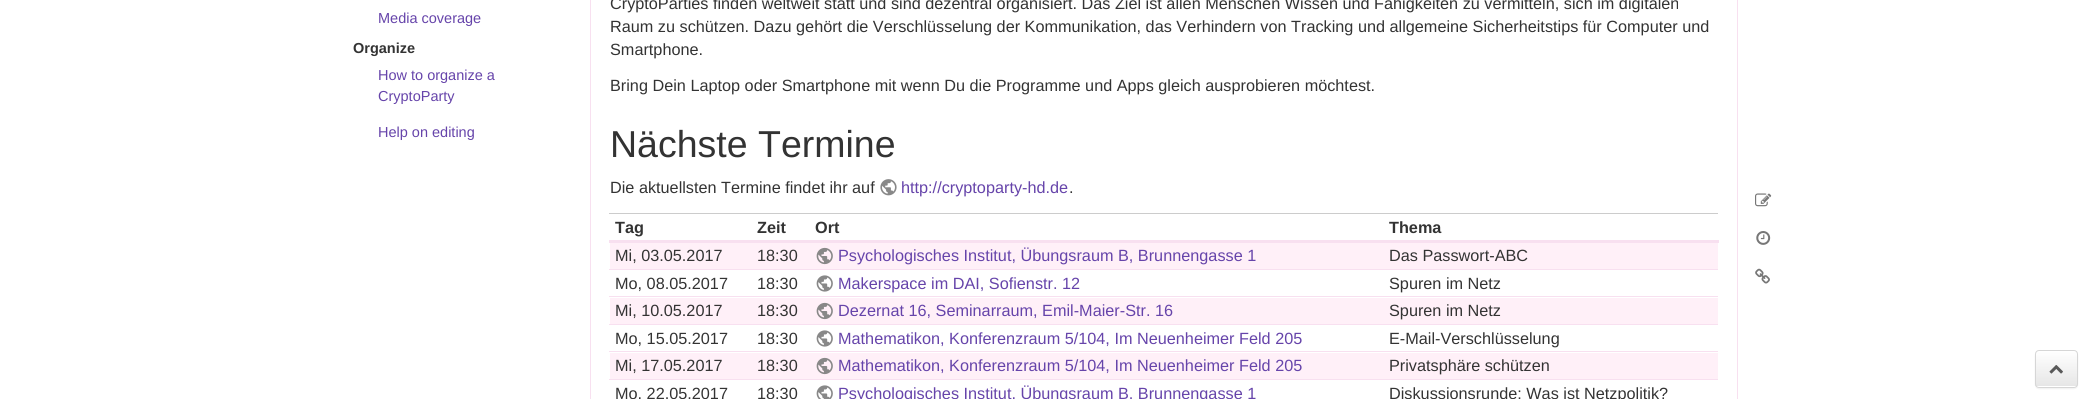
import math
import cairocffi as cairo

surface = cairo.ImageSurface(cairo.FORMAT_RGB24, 2090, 399)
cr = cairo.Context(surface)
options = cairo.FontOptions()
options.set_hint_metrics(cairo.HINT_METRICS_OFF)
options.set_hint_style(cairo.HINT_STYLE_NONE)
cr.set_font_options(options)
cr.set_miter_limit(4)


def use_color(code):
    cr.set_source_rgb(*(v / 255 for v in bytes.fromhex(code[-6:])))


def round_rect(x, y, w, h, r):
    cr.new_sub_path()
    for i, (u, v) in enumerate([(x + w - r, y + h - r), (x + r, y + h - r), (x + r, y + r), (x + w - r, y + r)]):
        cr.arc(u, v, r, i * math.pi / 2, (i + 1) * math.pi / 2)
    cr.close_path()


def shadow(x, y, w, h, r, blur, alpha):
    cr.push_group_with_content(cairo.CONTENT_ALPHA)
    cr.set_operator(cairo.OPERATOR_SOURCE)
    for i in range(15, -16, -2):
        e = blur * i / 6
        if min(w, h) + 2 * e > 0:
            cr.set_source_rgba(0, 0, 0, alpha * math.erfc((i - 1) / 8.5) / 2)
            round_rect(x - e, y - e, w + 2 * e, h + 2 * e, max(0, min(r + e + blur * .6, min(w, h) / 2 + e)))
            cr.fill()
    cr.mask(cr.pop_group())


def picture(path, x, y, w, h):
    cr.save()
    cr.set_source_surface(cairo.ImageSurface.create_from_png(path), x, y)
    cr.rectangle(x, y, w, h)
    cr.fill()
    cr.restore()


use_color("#ffffff")
cr.paint()
cr.select_font_face("Liberation Sans")
cr.set_font_size(14.5)
use_color("#6644aa")
cr.move_to(378, 23)
cr.show_text("Media coverage")
cr.select_font_face("Liberation Sans", cairo.FONT_SLANT_NORMAL, cairo.FONT_WEIGHT_BOLD)
use_color("#333333")
cr.move_to(353, 53)
cr.show_text("Organize")
cr.select_font_face("Liberation Sans")
use_color("#6644aa")
cr.move_to(378, 80)
cr.show_text("How to organize a")
cr.move_to(378, 101)
cr.show_text("CryptoParty")
cr.move_to(378, 137)
cr.show_text("Help on editing")
cr.rectangle(590.5, -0.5, 1147, 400)
use_color("#f8e0f0")
cr.set_line_width(1)
cr.stroke()
cr.set_font_size(16.25)
use_color("#333333")
cr.move_to(610, 9)
cr.show_text("CryptoParties finden weltweit statt und sind dezentral organisiert. Das Ziel ist allen Menschen Wissen und Fähigkeiten zu vermitteln, sich im digitalen")
cr.move_to(610, 32)
cr.show_text("Raum zu schützen. Dazu gehört die Verschlüsselung der Kommunikation, das Verhindern von Tracking und allgemeine Sicherheitstips für Computer und")
cr.move_to(610, 55)
cr.show_text("Smartphone.")
cr.move_to(610, 91)
cr.show_text("Bring Dein Laptop oder Smartphone mit wenn Du die Programme und Apps gleich ausprobieren möchtest.")
cr.set_font_size(37.5)
cr.move_to(610, 157)
cr.show_text("Nächste Termine")
cr.set_font_size(16.25)
cr.move_to(610, 193)
cr.show_text("Die aktuellsten Termine findet ihr auf")
picture("img1.png", 880, 179, 17, 17)
use_color("#6644aa")
cr.move_to(901, 193)
cr.show_text("http://cryptoparty-hd.de")
use_color("#333333")
cr.move_to(1069, 193)
cr.show_text(".")
cr.select_font_face("Liberation Sans", cairo.FONT_SLANT_NORMAL, cairo.FONT_WEIGHT_BOLD)
cr.move_to(615, 233)
cr.show_text("Tag")
cr.move_to(757, 233)
cr.show_text("Zeit")
cr.move_to(815, 233)
cr.show_text("Ort")
use_color("#cccccc")
cr.rectangle(609, 213, 1109, 1)
cr.fill()
use_color("#f8e0f0")
cr.rectangle(609, 240, 1110, 3)
cr.fill()
use_color("#333333")
cr.move_to(1389, 233)
cr.show_text("Thema")
use_color("#fff0f8")
cr.rectangle(610, 243, 1108, 26)
cr.fill()
cr.select_font_face("Liberation Sans")
use_color("#333333")
cr.move_to(615, 261)
cr.show_text("Mi, 03.05.2017")
cr.move_to(757, 261)
cr.show_text("18:30")
picture("img2.png", 816, 247, 17, 18)
use_color("#6644aa")
cr.move_to(838, 261)
cr.show_text("Psychologisches Institut, Übungsraum B, Brunnengasse 1")
use_color("#333333")
cr.move_to(1389, 261)
cr.show_text("Das Passwort-ABC")
cr.move_to(615, 289)
cr.show_text("Mo, 08.05.2017")
cr.move_to(757, 289)
cr.show_text("18:30")
picture("img3.png", 816, 275, 17, 17)
use_color("#6644aa")
cr.move_to(838, 289)
cr.show_text("Makerspace im DAI, Sofienstr. 12")
use_color("#f8e0f0")
cr.rectangle(609, 269, 1109, 1)
cr.fill()
use_color("#333333")
cr.move_to(1389, 289)
cr.show_text("Spuren im Netz")
use_color("#fff0f8")
cr.rectangle(610, 298, 1108, 26)
cr.fill()
use_color("#333333")
cr.move_to(615, 316)
cr.show_text("Mi, 10.05.2017")
cr.move_to(757, 316)
cr.show_text("18:30")
picture("img2.png", 816, 302, 17, 18)
use_color("#6644aa")
cr.move_to(838, 316)
cr.show_text("Dezernat 16, Seminarraum, Emil-Maier-Str. 16")
use_color("#f8e0f0")
cr.rectangle(609, 296, 1109, 1)
cr.fill()
use_color("#333333")
cr.move_to(1389, 316)
cr.show_text("Spuren im Netz")
cr.move_to(615, 344)
cr.show_text("Mo, 15.05.2017")
cr.move_to(757, 344)
cr.show_text("18:30")
picture("img3.png", 816, 330, 17, 17)
use_color("#6644aa")
cr.move_to(838, 344)
cr.show_text("Mathematikon, Konferenzraum 5/104, Im Neuenheimer Feld 205")
use_color("#f8e0f0")
cr.rectangle(609, 324, 1109, 1)
cr.fill()
use_color("#333333")
cr.move_to(1389, 344)
cr.show_text("E-Mail-Verschlüsselung")
use_color("#fff0f8")
cr.rectangle(610, 353, 1108, 26)
cr.fill()
use_color("#333333")
cr.move_to(615, 371)
cr.show_text("Mi, 17.05.2017")
cr.move_to(757, 371)
cr.show_text("18:30")
picture("img2.png", 816, 357, 17, 18)
use_color("#6644aa")
cr.move_to(838, 371)
cr.show_text("Mathematikon, Konferenzraum 5/104, Im Neuenheimer Feld 205")
use_color("#f8e0f0")
cr.rectangle(609, 351, 1109, 1)
cr.fill()
use_color("#333333")
cr.move_to(1389, 371)
cr.show_text("Privatsphäre schützen")
cr.move_to(615, 399)
cr.show_text("Mo, 22.05.2017")
cr.move_to(757, 399)
cr.show_text("18:30")
picture("img4.png", 816, 385, 17, 14)
use_color("#6644aa")
cr.move_to(838, 399)
cr.show_text("Psychologisches Institut, Übungsraum B, Brunnengasse 1")
use_color("#f8e0f0")
cr.rectangle(609, 379, 1109, 1)
cr.fill()
use_color("#333333")
cr.move_to(1389, 399)
cr.show_text("Diskussionsrunde: Was ist Netzpolitik?")
picture("img5.png", 1755, 193, 17, 14)
picture("img6.png", 1756, 231, 15, 14)
picture("img7.png", 1755, 268, 15, 16)
use_color("#333333")
shadow(2035, 351, 43, 38, 4, 0.5, 0.07)
use_color("#ffffff")
round_rect(2035, 350, 43, 38, 4)
cr.fill()
cr.save()
round_rect(2035, 350, 43, 38, 4)
cr.clip()
gradient = cairo.LinearGradient(2056, 351, 2056, 386)
gradient.add_color_stop_rgba(0, 1, 1, 1, 1)
gradient.add_color_stop_rgba(1, 0.902, 0.902, 0.902, 1)
cr.set_source(gradient)
cr.rectangle(2035, 351, 43, 35)
cr.fill()
cr.restore()
round_rect(2035.5, 350.5, 42, 37, 3.5)
use_color("#d6d6d6")
cr.stroke()
picture("img8.png", 2049, 365, 14, 9)
surface.write_to_png("result.png")
